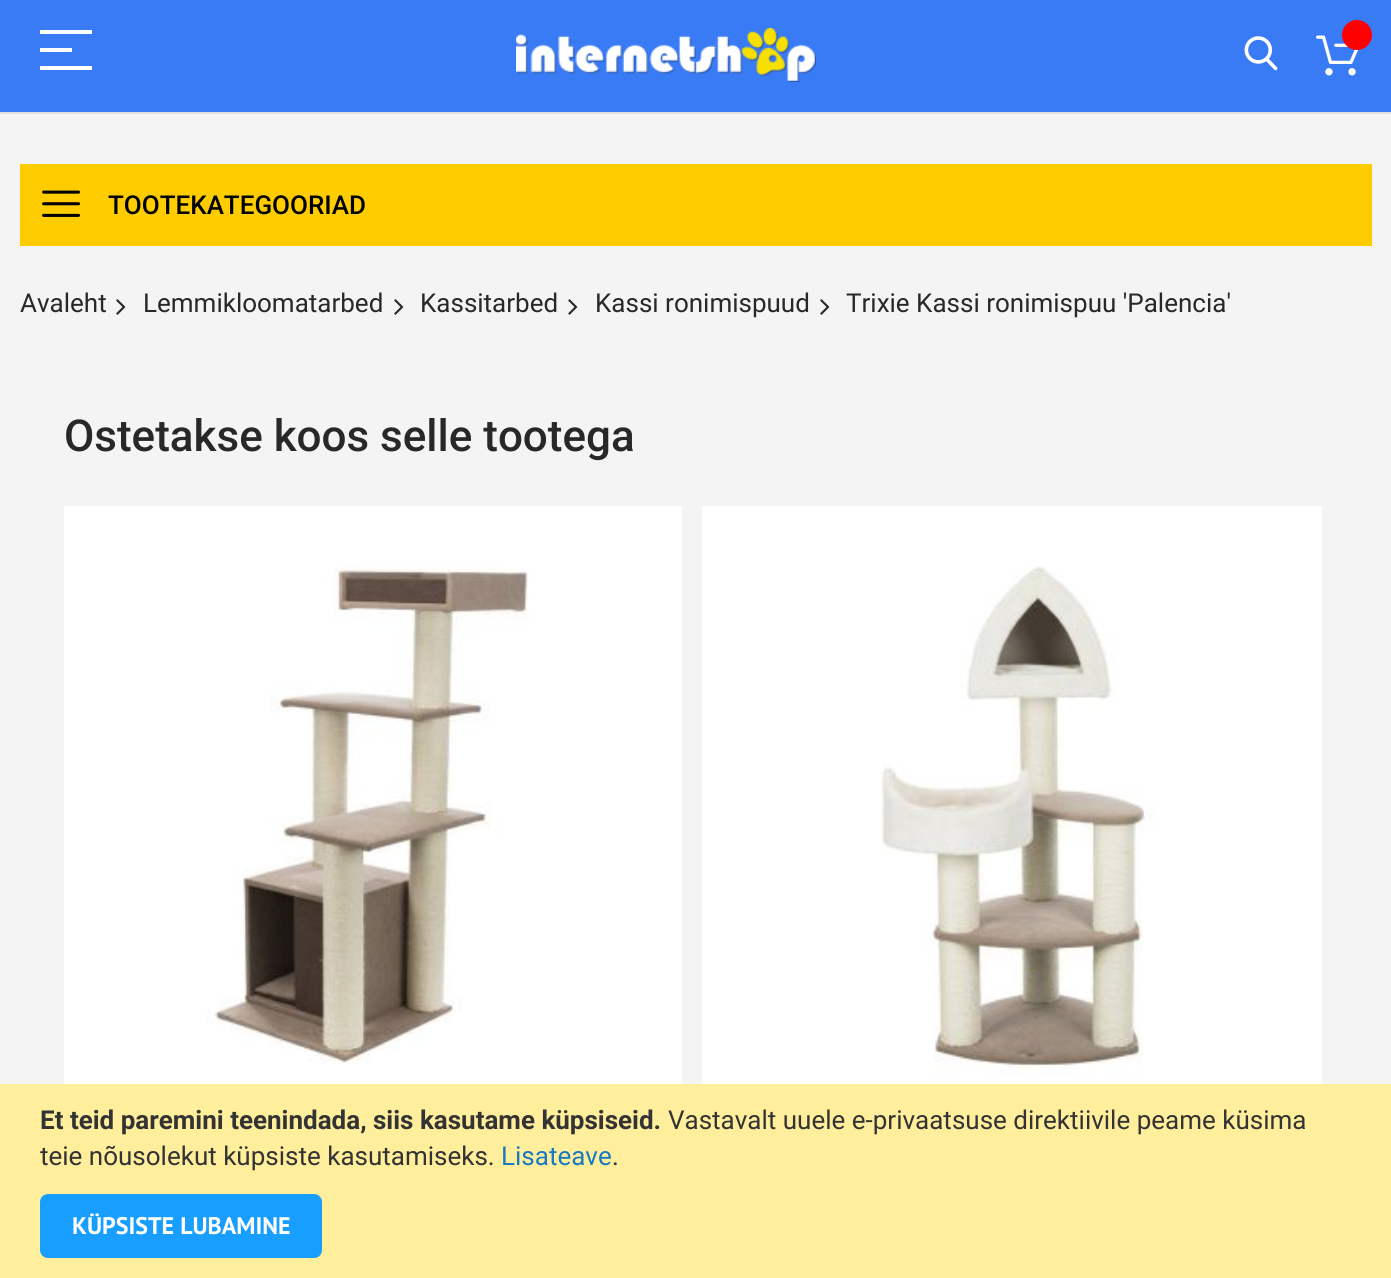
import math
import cairocffi as cairo

surface = cairo.ImageSurface(cairo.FORMAT_RGB24, 1391, 1278)
cr = cairo.Context(surface)
options = cairo.FontOptions()
options.set_hint_metrics(cairo.HINT_METRICS_OFF)
options.set_hint_style(cairo.HINT_STYLE_NONE)
cr.set_font_options(options)
cr.set_miter_limit(4)


def use_color(code):
    cr.set_source_rgb(*(v / 255 for v in bytes.fromhex(code[-6:])))


def round_rect(x, y, w, h, r):
    cr.new_sub_path()
    for i, (u, v) in enumerate([(x + w - r, y + h - r), (x + r, y + h - r), (x + r, y + r), (x + w - r, y + r)]):
        cr.arc(u, v, r, i * math.pi / 2, (i + 1) * math.pi / 2)
    cr.close_path()


def picture(path, x, y, w, h):
    cr.save()
    cr.set_source_surface(cairo.ImageSurface.create_from_png(path), x, y)
    cr.rectangle(x, y, w, h)
    cr.fill()
    cr.restore()


use_color("#f4f4f4")
cr.paint()
use_color("#397bf5")
cr.rectangle(0, 0, 1391, 112)
cr.fill()
use_color("#e1e1e1")
cr.rectangle(0, 112, 1391, 2)
cr.fill()
use_color("#ffffff")
cr.rectangle(40, 30, 52, 4)
cr.fill()
cr.rectangle(40, 66, 52, 4)
cr.fill()
cr.rectangle(40, 48, 32, 4)
cr.fill()
picture("img1.png", 516, 28, 300, 54)
picture("img2.png", 1244, 36, 34, 35)
picture("img3.png", 1316, 35, 43, 41)
use_color("#ff0000")
cr.arc(1357, 35, 15, 0, 2 * math.pi)
cr.fill()
use_color("#ffcc00")
cr.rectangle(20, 164, 1352, 82)
cr.fill()
picture("img4.png", 42, 190, 38, 27)
cr.select_font_face("Roboto Medium")
cr.set_font_size(26)
use_color("#000000")
cr.move_to(108, 214)
cr.show_text("TOOTEKATEGOORIAD")
cr.select_font_face("Roboto")
use_color("#282828")
cr.move_to(20, 312)
cr.show_text("Avaleht")
picture("img5.png", 116, 299, 10, 16)
cr.move_to(143, 312)
cr.show_text("Lemmikloomatarbed")
picture("img5.png", 394, 299, 10, 16)
cr.move_to(420, 312)
cr.show_text("Kassitarbed")
picture("img5.png", 568, 299, 10, 16)
cr.move_to(595, 312)
cr.show_text("Kassi ronimispuud")
picture("img5.png", 820, 299, 10, 16)
cr.move_to(846, 312)
cr.show_text("Trixie Kassi ronimispuu 'Palencia'")
cr.select_font_face("Roboto Medium")
cr.set_font_size(44)
cr.move_to(64, 451)
cr.show_text("Ostetakse koos selle tootega")
use_color("#ffffff")
cr.rectangle(64, 506, 618, 578)
cr.fill()
picture("img6.png", 207, 565, 322, 499)
cr.rectangle(702, 506, 620, 578)
cr.fill()
picture("img7.png", 881, 566, 274, 510)
use_color("#ffee9c")
cr.rectangle(0, 1084, 1391, 194)
cr.fill()
cr.select_font_face("Roboto", cairo.FONT_SLANT_NORMAL, cairo.FONT_WEIGHT_BOLD)
cr.set_font_size(26)
use_color("#333333")
cr.move_to(40, 1129)
cr.show_text("Et teid paremini teenindada, siis kasutame küpsiseid.")
cr.select_font_face("Roboto")
cr.move_to(668, 1129)
cr.show_text("Vastavalt uuele e-privaatsuse direktiivile peame küsima")
cr.move_to(40, 1165)
cr.show_text("teie nõusolekut küpsiste kasutamiseks.")
use_color("#1979c3")
cr.move_to(501, 1165)
cr.show_text("Lisateave")
use_color("#333333")
cr.move_to(612, 1165)
cr.show_text(".")
use_color("#189eff")
round_rect(41, 1195, 280, 62, 7)
cr.fill_preserve()
cr.stroke()
cr.select_font_face("PT Sans", cairo.FONT_SLANT_NORMAL, cairo.FONT_WEIGHT_BOLD)
cr.set_font_size(24)
use_color("#ffffff")
cr.move_to(72, 1234)
cr.show_text("KÜPSISTE LUBAMINE")
surface.write_to_png("result.png")
